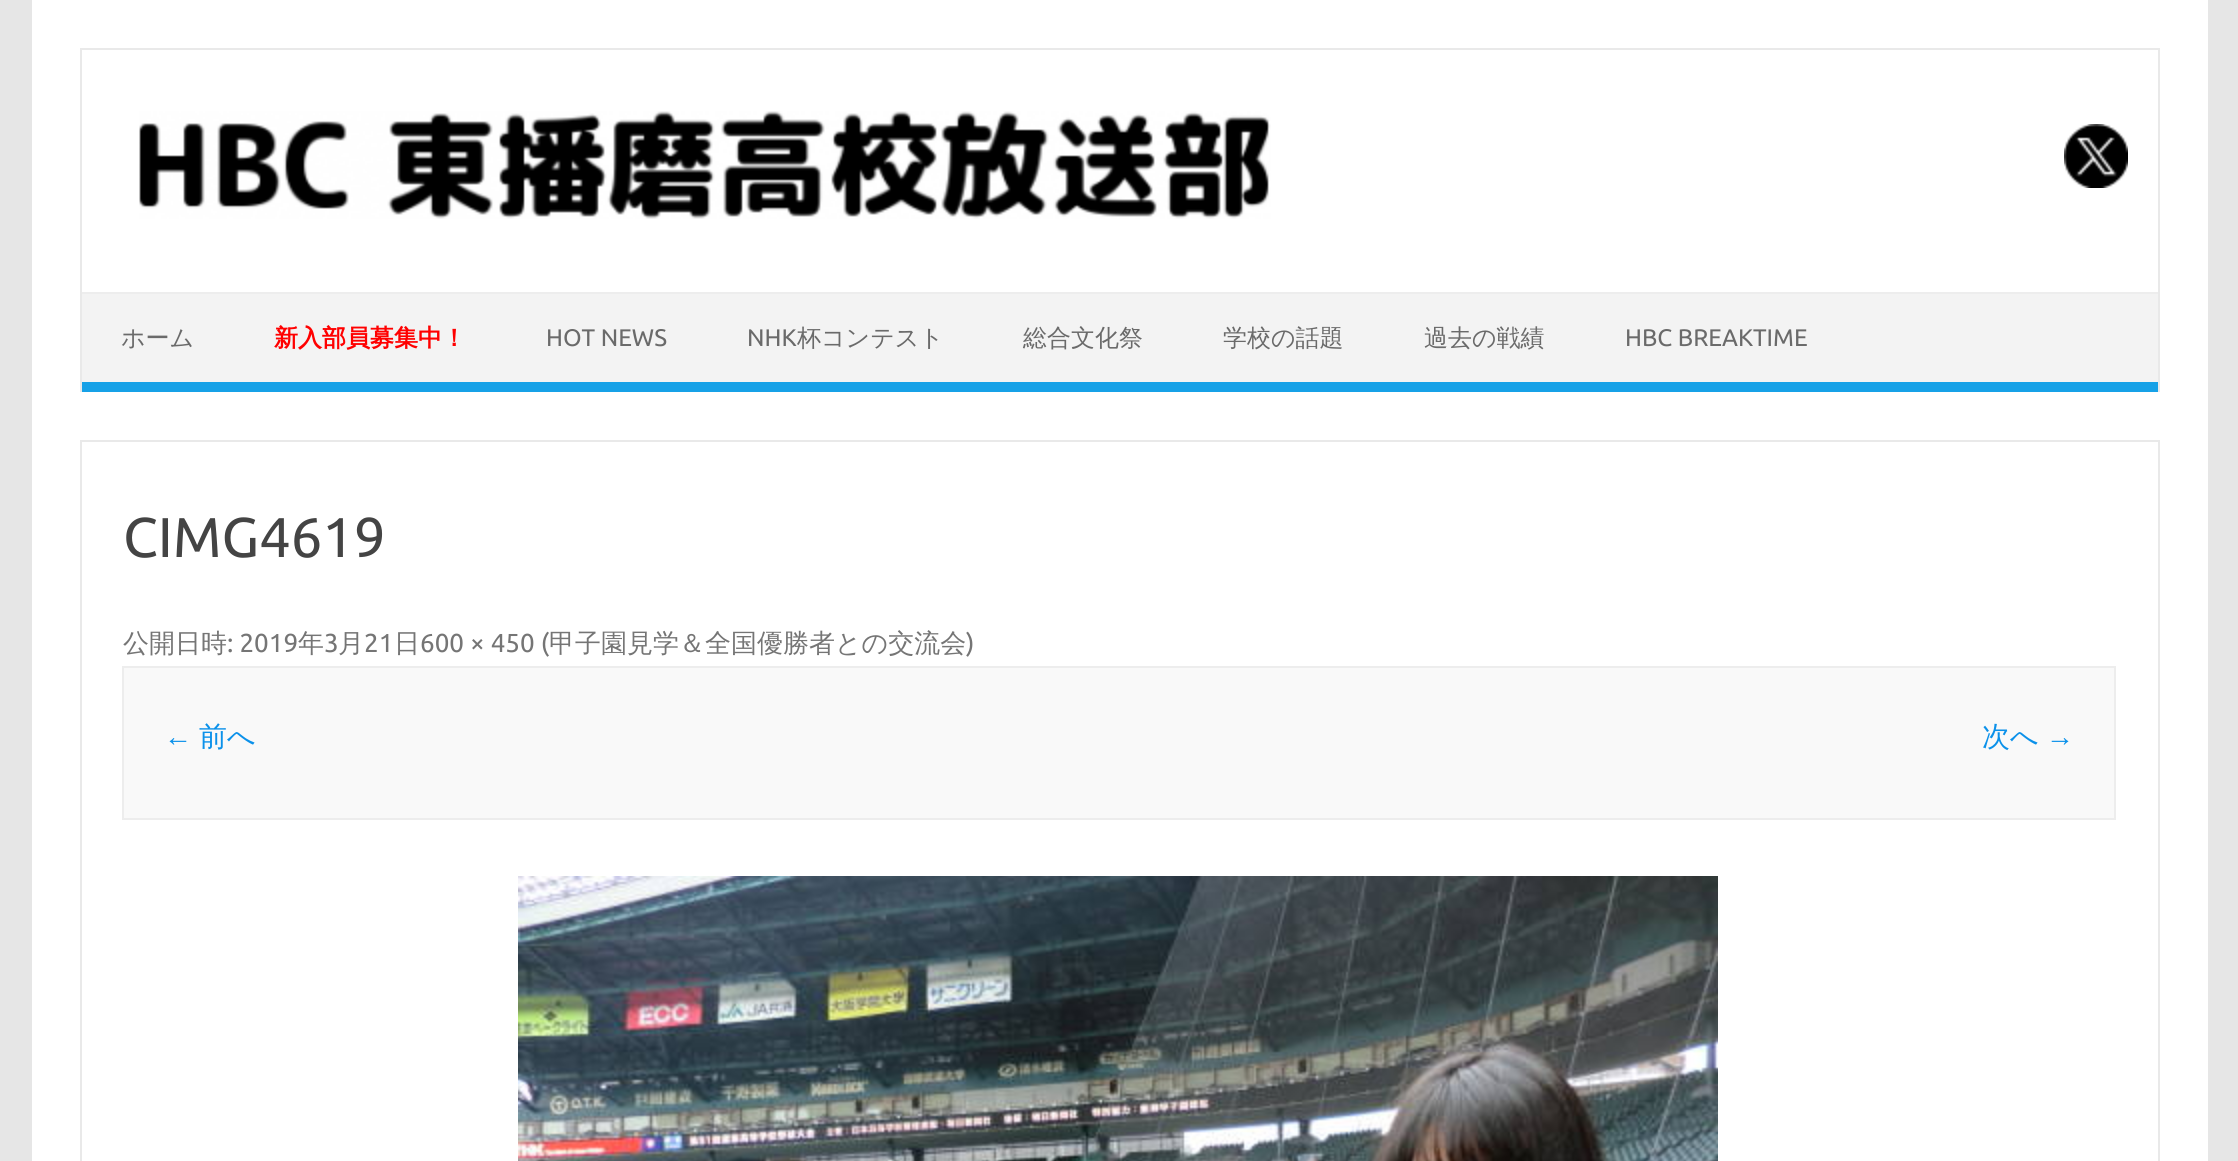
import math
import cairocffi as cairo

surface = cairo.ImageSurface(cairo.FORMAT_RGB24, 2238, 1161)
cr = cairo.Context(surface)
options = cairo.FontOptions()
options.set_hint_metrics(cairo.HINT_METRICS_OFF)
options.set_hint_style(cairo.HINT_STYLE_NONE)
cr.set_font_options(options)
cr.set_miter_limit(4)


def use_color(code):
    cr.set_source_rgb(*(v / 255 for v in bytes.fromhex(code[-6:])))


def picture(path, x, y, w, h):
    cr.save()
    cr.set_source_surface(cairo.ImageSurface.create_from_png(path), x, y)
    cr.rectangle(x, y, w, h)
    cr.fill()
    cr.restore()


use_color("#e6e6e6")
cr.paint()
use_color("#ffffff")
cr.rectangle(32, 0, 2176, 1161)
cr.fill()
use_color("#e9e9e9")
cr.rectangle(80, 48, 2080, 2)
cr.fill()
cr.rectangle(2158, 48, 2, 344)
cr.fill()
cr.rectangle(80, 48, 2, 344)
cr.fill()
picture("img1.png", 139, 111, 1132, 108)
picture("img2.png", 2064, 124, 64, 64)
use_color("#f3f3f3")
cr.rectangle(82, 294, 2076, 88)
cr.fill()
use_color("#ededed")
cr.rectangle(82, 292, 2076, 2)
cr.fill()
use_color("#16a1e7")
cr.rectangle(82, 382, 2076, 10)
cr.fill()
cr.select_font_face("WenQuanYi Zen Hei Medium")
cr.set_font_size(24)
use_color("#6a6a6a")
cr.move_to(121, 346)
cr.show_text("ホーム")
cr.select_font_face("WenQuanYi Zen Hei", cairo.FONT_SLANT_NORMAL, cairo.FONT_WEIGHT_BOLD)
use_color("#ff0000")
cr.move_to(274, 346)
cr.show_text("新入部員募集中！")
cr.select_font_face("Ubuntu")
use_color("#6a6a6a")
cr.move_to(546, 346)
cr.show_text("HOT NEWS")
cr.move_to(747, 346)
cr.show_text("NHK")
cr.select_font_face("WenQuanYi Zen Hei Medium")
cr.move_to(797, 346)
cr.show_text("杯コンテスト")
cr.move_to(1023, 346)
cr.show_text("総合文化祭")
cr.move_to(1223, 346)
cr.show_text("学校の話題")
cr.move_to(1424, 346)
cr.show_text("過去の戦績")
cr.select_font_face("Ubuntu")
cr.move_to(1625, 346)
cr.show_text("HBC BREAKTIME")
cr.rectangle(81, 441, 2078, 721)
use_color("#e9e9e9")
cr.stroke()
cr.set_font_size(56)
use_color("#444444")
cr.move_to(123, 557)
cr.show_text("CIMG4619")
cr.select_font_face("WenQuanYi Zen Hei Medium")
cr.set_font_size(26)
use_color("#757575")
cr.move_to(123, 652)
cr.show_text("公開日時")
cr.select_font_face("Ubuntu")
cr.move_to(227, 652)
cr.show_text(": 2019")
cr.select_font_face("WenQuanYi Zen Hei Medium")
cr.move_to(298, 652)
cr.show_text("年")
cr.select_font_face("Ubuntu")
cr.move_to(324, 652)
cr.show_text("3")
cr.select_font_face("WenQuanYi Zen Hei Medium")
cr.move_to(338, 652)
cr.show_text("月")
cr.select_font_face("Ubuntu")
cr.move_to(364, 652)
cr.show_text("21")
cr.select_font_face("WenQuanYi Zen Hei Medium")
cr.move_to(394, 652)
cr.show_text("日")
cr.select_font_face("Ubuntu")
cr.move_to(420, 652)
cr.show_text("600 × 450 (")
cr.select_font_face("WenQuanYi Zen Hei Medium")
cr.move_to(549, 652)
cr.show_text("甲子園見学＆全国優勝者との交流会")
cr.select_font_face("Ubuntu")
cr.move_to(966, 652)
cr.show_text(")")
use_color("#f9f9f9")
cr.rectangle(123, 667, 1992, 152)
cr.fill_preserve()
use_color("#ededed")
cr.stroke()
cr.select_font_face("Liberation Sans")
cr.set_font_size(28)
use_color("#0b91ea")
cr.move_to(164, 746)
cr.show_text("←")
cr.select_font_face("WenQuanYi Zen Hei Medium")
cr.move_to(199, 746)
cr.show_text("前へ")
cr.move_to(1982, 746)
cr.show_text("次へ")
cr.select_font_face("Liberation Sans")
cr.move_to(2046, 746)
cr.show_text("→")
picture("img3.png", 518, 876, 1200, 285)
surface.write_to_png("result.png")
